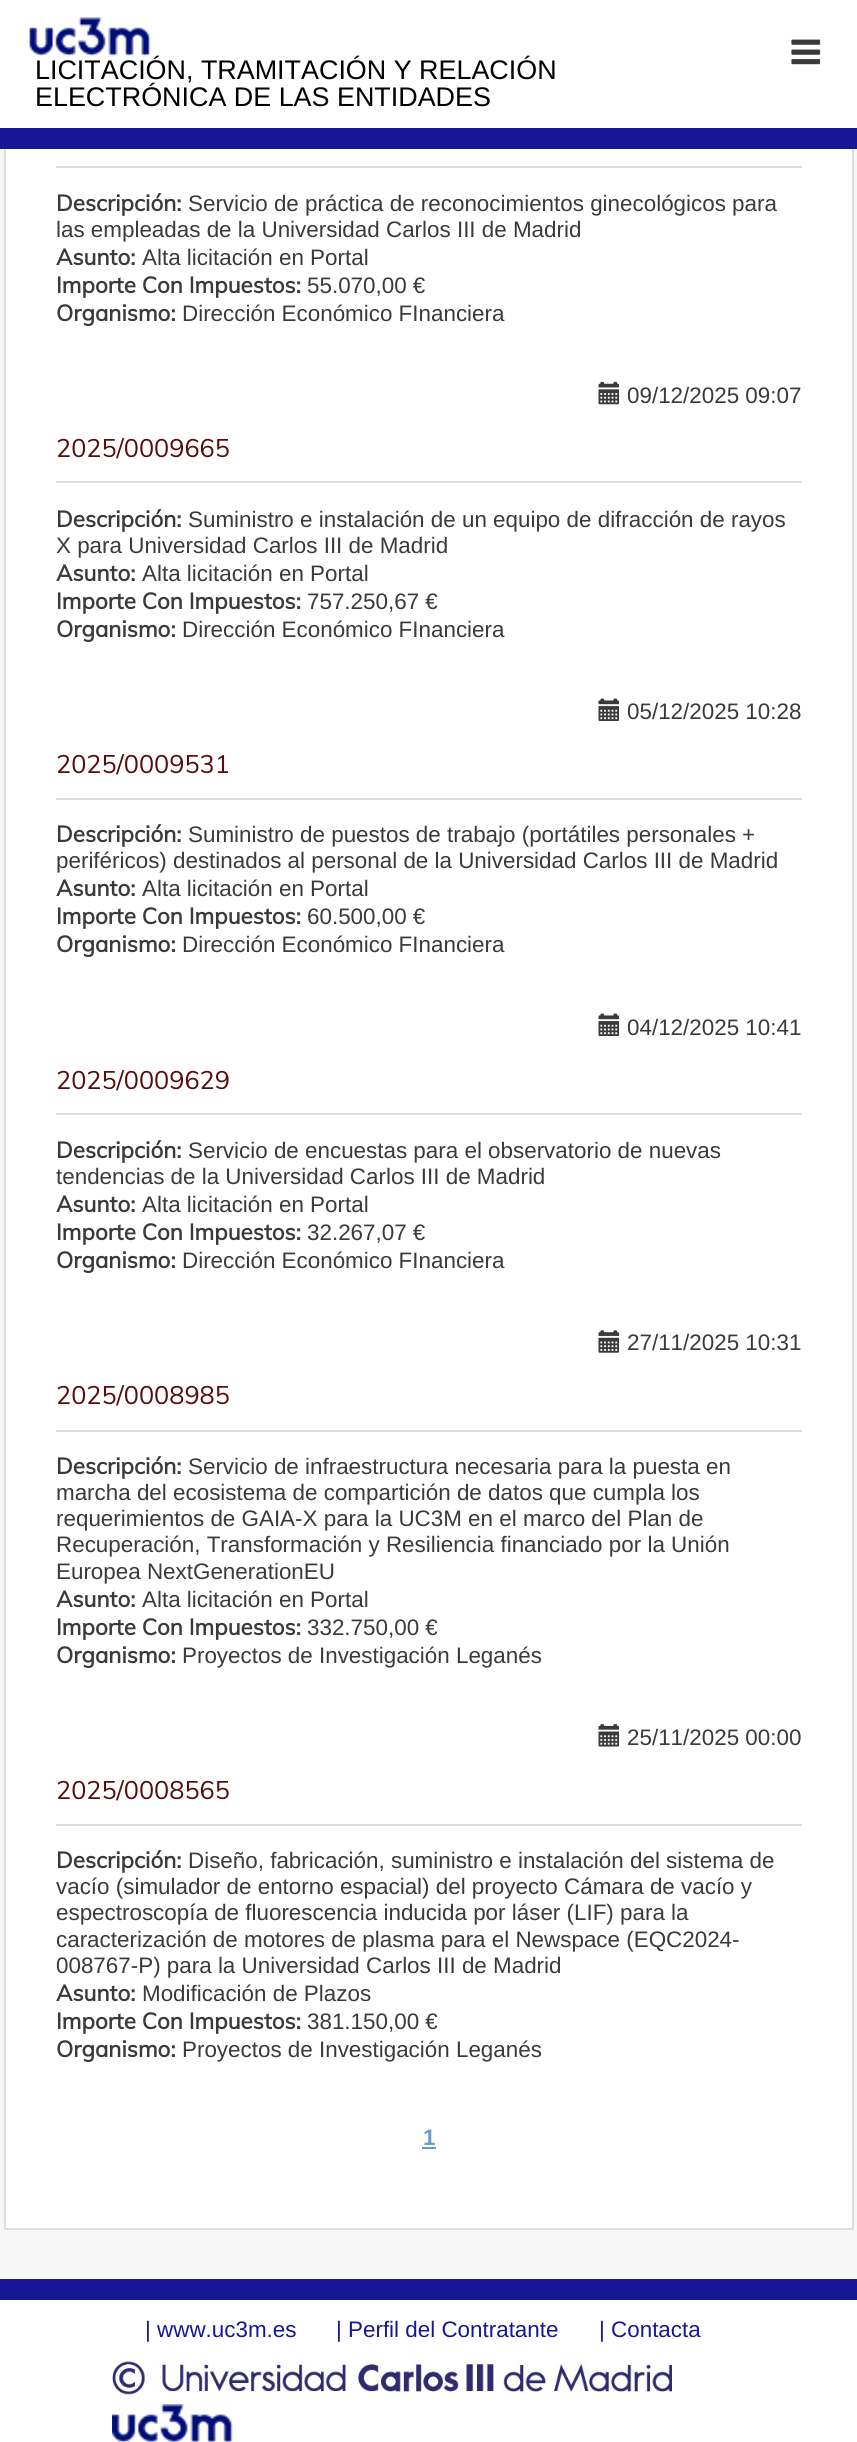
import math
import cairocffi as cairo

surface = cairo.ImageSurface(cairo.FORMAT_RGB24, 857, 2442)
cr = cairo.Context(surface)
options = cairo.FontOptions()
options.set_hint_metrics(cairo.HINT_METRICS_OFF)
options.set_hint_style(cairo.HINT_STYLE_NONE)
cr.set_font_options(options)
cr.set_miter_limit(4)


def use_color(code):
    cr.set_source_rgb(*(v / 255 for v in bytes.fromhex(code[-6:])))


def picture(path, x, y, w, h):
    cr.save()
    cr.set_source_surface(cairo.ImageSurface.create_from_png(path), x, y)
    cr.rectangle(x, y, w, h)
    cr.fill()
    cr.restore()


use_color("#f7f7f7")
cr.paint()
use_color("#ffffff")
cr.rectangle(6, 149, 846, 2079)
cr.fill()
cr.rectangle(5, -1, 848, 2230)
use_color("#dddddd")
cr.stroke()
use_color("#ffffff")
cr.rectangle(0, 0, 857, 128)
cr.fill()
use_color("#171796")
cr.rectangle(0, 128, 857, 21)
cr.fill()
picture("img1.png", 29, 17, 122, 40)
cr.select_font_face("Liberation Sans")
cr.set_font_size(26.9)
use_color("#000000")
cr.move_to(35, 79)
cr.show_text("LICITACIÓN, TRAMITACIÓN Y RELACIÓN")
cr.move_to(35, 106)
cr.show_text("ELECTRÓNICA DE LAS ENTIDADES")
picture("img2.png", 791, 39, 30, 26)
use_color("#dddddd")
cr.rectangle(56, 166, 746, 2)
cr.fill()
cr.select_font_face("Muli", cairo.FONT_SLANT_NORMAL, cairo.FONT_WEIGHT_BOLD)
cr.set_font_size(22.4)
use_color("#3a3a3a")
cr.move_to(56, 211)
cr.show_text("Descripción:")
cr.select_font_face("Liberation Sans")
cr.move_to(188, 211)
cr.show_text("Servicio de práctica de reconocimientos ginecológicos para")
cr.move_to(56, 237)
cr.show_text("las empleadas de la Universidad Carlos III de Madrid")
cr.select_font_face("Muli", cairo.FONT_SLANT_NORMAL, cairo.FONT_WEIGHT_BOLD)
cr.move_to(56, 265)
cr.show_text("Asunto:")
cr.select_font_face("Liberation Sans")
cr.move_to(142, 265)
cr.show_text("Alta licitación en Portal")
cr.select_font_face("Muli", cairo.FONT_SLANT_NORMAL, cairo.FONT_WEIGHT_BOLD)
cr.move_to(56, 293)
cr.show_text("Importe Con Impuestos:")
cr.select_font_face("Liberation Sans")
cr.move_to(307, 293)
cr.show_text("55.070,00 €")
cr.select_font_face("Muli", cairo.FONT_SLANT_NORMAL, cairo.FONT_WEIGHT_BOLD)
cr.move_to(56, 321)
cr.show_text("Organismo:")
cr.select_font_face("Liberation Sans")
cr.move_to(182, 321)
cr.show_text("Dirección Económico FInanciera")
picture("img3.png", 598, 381, 22, 24)
cr.move_to(627, 403)
cr.show_text("09/12/2025 09:07")
use_color("#dddddd")
cr.rectangle(56, 481, 746, 2)
cr.fill()
cr.select_font_face("Muli")
cr.set_font_size(25.25)
use_color("#580c0c")
cr.move_to(56, 457)
cr.show_text("2025/0009665")
cr.select_font_face("Muli", cairo.FONT_SLANT_NORMAL, cairo.FONT_WEIGHT_BOLD)
cr.set_font_size(22.4)
use_color("#3a3a3a")
cr.move_to(56, 527)
cr.show_text("Descripción:")
cr.select_font_face("Liberation Sans")
cr.move_to(188, 527)
cr.show_text("Suministro e instalación de un equipo de difracción de rayos")
cr.move_to(56, 553)
cr.show_text("X para Universidad Carlos III de Madrid")
cr.select_font_face("Muli", cairo.FONT_SLANT_NORMAL, cairo.FONT_WEIGHT_BOLD)
cr.move_to(56, 581)
cr.show_text("Asunto:")
cr.select_font_face("Liberation Sans")
cr.move_to(142, 581)
cr.show_text("Alta licitación en Portal")
cr.select_font_face("Muli", cairo.FONT_SLANT_NORMAL, cairo.FONT_WEIGHT_BOLD)
cr.move_to(56, 609)
cr.show_text("Importe Con Impuestos:")
cr.select_font_face("Liberation Sans")
cr.move_to(307, 609)
cr.show_text("757.250,67 €")
cr.select_font_face("Muli", cairo.FONT_SLANT_NORMAL, cairo.FONT_WEIGHT_BOLD)
cr.move_to(56, 637)
cr.show_text("Organismo:")
cr.select_font_face("Liberation Sans")
cr.move_to(182, 637)
cr.show_text("Dirección Económico FInanciera")
picture("img4.png", 598, 698, 22, 23)
cr.move_to(627, 719)
cr.show_text("05/12/2025 10:28")
use_color("#dddddd")
cr.rectangle(56, 798, 746, 2)
cr.fill()
cr.select_font_face("Muli")
cr.set_font_size(25.25)
use_color("#580c0c")
cr.move_to(56, 773)
cr.show_text("2025/0009531")
cr.select_font_face("Muli", cairo.FONT_SLANT_NORMAL, cairo.FONT_WEIGHT_BOLD)
cr.set_font_size(22.4)
use_color("#3a3a3a")
cr.move_to(56, 842)
cr.show_text("Descripción:")
cr.select_font_face("Liberation Sans")
cr.move_to(188, 842)
cr.show_text("Suministro de puestos de trabajo (portátiles personales +")
cr.move_to(56, 868)
cr.show_text("periféricos) destinados al personal de la Universidad Carlos III de Madrid")
cr.select_font_face("Muli", cairo.FONT_SLANT_NORMAL, cairo.FONT_WEIGHT_BOLD)
cr.move_to(56, 896)
cr.show_text("Asunto:")
cr.select_font_face("Liberation Sans")
cr.move_to(142, 896)
cr.show_text("Alta licitación en Portal")
cr.select_font_face("Muli", cairo.FONT_SLANT_NORMAL, cairo.FONT_WEIGHT_BOLD)
cr.move_to(56, 924)
cr.show_text("Importe Con Impuestos:")
cr.select_font_face("Liberation Sans")
cr.move_to(307, 924)
cr.show_text("60.500,00 €")
cr.select_font_face("Muli", cairo.FONT_SLANT_NORMAL, cairo.FONT_WEIGHT_BOLD)
cr.move_to(56, 952)
cr.show_text("Organismo:")
cr.select_font_face("Liberation Sans")
cr.move_to(182, 952)
cr.show_text("Dirección Económico FInanciera")
picture("img4.png", 598, 1013, 22, 23)
cr.move_to(627, 1035)
cr.show_text("04/12/2025 10:41")
use_color("#dddddd")
cr.rectangle(56, 1113, 746, 2)
cr.fill()
cr.select_font_face("Muli")
cr.set_font_size(25.25)
use_color("#580c0c")
cr.move_to(56, 1089)
cr.show_text("2025/0009629")
cr.select_font_face("Muli", cairo.FONT_SLANT_NORMAL, cairo.FONT_WEIGHT_BOLD)
cr.set_font_size(22.4)
use_color("#3a3a3a")
cr.move_to(56, 1158)
cr.show_text("Descripción:")
cr.select_font_face("Liberation Sans")
cr.move_to(188, 1158)
cr.show_text("Servicio de encuestas para el observatorio de nuevas")
cr.move_to(56, 1184)
cr.show_text("tendencias de la Universidad Carlos III de Madrid")
cr.select_font_face("Muli", cairo.FONT_SLANT_NORMAL, cairo.FONT_WEIGHT_BOLD)
cr.move_to(56, 1212)
cr.show_text("Asunto:")
cr.select_font_face("Liberation Sans")
cr.move_to(142, 1212)
cr.show_text("Alta licitación en Portal")
cr.select_font_face("Muli", cairo.FONT_SLANT_NORMAL, cairo.FONT_WEIGHT_BOLD)
cr.move_to(56, 1240)
cr.show_text("Importe Con Impuestos:")
cr.select_font_face("Liberation Sans")
cr.move_to(307, 1240)
cr.show_text("32.267,07 €")
cr.select_font_face("Muli", cairo.FONT_SLANT_NORMAL, cairo.FONT_WEIGHT_BOLD)
cr.move_to(56, 1268)
cr.show_text("Organismo:")
cr.select_font_face("Liberation Sans")
cr.move_to(182, 1268)
cr.show_text("Dirección Económico FInanciera")
picture("img5.png", 598, 1330, 22, 23)
cr.move_to(627, 1350)
cr.show_text("27/11/2025 10:31")
use_color("#dddddd")
cr.rectangle(56, 1430, 746, 2)
cr.fill()
cr.select_font_face("Muli")
cr.set_font_size(25.25)
use_color("#580c0c")
cr.move_to(56, 1404)
cr.show_text("2025/0008985")
cr.select_font_face("Muli", cairo.FONT_SLANT_NORMAL, cairo.FONT_WEIGHT_BOLD)
cr.set_font_size(22.4)
use_color("#3a3a3a")
cr.move_to(56, 1474)
cr.show_text("Descripción:")
cr.select_font_face("Liberation Sans")
cr.move_to(188, 1474)
cr.show_text("Servicio de infraestructura necesaria para la puesta en")
cr.move_to(56, 1500)
cr.show_text("marcha del ecosistema de compartición de datos que cumpla los")
cr.move_to(56, 1526)
cr.show_text("requerimientos de GAIA-X para la UC3M en el marco del Plan de")
cr.move_to(56, 1552)
cr.show_text("Recuperación, Transformación y Resiliencia financiado por la Unión")
cr.move_to(56, 1579)
cr.show_text("Europea NextGenerationEU")
cr.select_font_face("Muli", cairo.FONT_SLANT_NORMAL, cairo.FONT_WEIGHT_BOLD)
cr.move_to(56, 1607)
cr.show_text("Asunto:")
cr.select_font_face("Liberation Sans")
cr.move_to(142, 1607)
cr.show_text("Alta licitación en Portal")
cr.select_font_face("Muli", cairo.FONT_SLANT_NORMAL, cairo.FONT_WEIGHT_BOLD)
cr.move_to(56, 1635)
cr.show_text("Importe Con Impuestos:")
cr.select_font_face("Liberation Sans")
cr.move_to(307, 1635)
cr.show_text("332.750,00 €")
cr.select_font_face("Muli", cairo.FONT_SLANT_NORMAL, cairo.FONT_WEIGHT_BOLD)
cr.move_to(56, 1663)
cr.show_text("Organismo:")
cr.select_font_face("Liberation Sans")
cr.move_to(182, 1663)
cr.show_text("Proyectos de Investigación Leganés")
picture("img6.png", 598, 1724, 22, 23)
cr.move_to(627, 1745)
cr.show_text("25/11/2025 00:00")
use_color("#dddddd")
cr.rectangle(56, 1824, 746, 2)
cr.fill()
cr.select_font_face("Muli")
cr.set_font_size(25.25)
use_color("#580c0c")
cr.move_to(56, 1799)
cr.show_text("2025/0008565")
cr.select_font_face("Muli", cairo.FONT_SLANT_NORMAL, cairo.FONT_WEIGHT_BOLD)
cr.set_font_size(22.4)
use_color("#3a3a3a")
cr.move_to(56, 1868)
cr.show_text("Descripción:")
cr.select_font_face("Liberation Sans")
cr.move_to(188, 1868)
cr.show_text("Diseño, fabricación, suministro e instalación del sistema de")
cr.move_to(56, 1894)
cr.show_text("vacío (simulador de entorno espacial) del proyecto Cámara de vacío y")
cr.move_to(56, 1920)
cr.show_text("espectroscopía de fluorescencia inducida por láser (LIF) para la")
cr.move_to(56, 1947)
cr.show_text("caracterización de motores de plasma para el Newspace (EQC2024-")
cr.move_to(56, 1973)
cr.show_text("008767-P) para la Universidad Carlos III de Madrid")
cr.select_font_face("Muli", cairo.FONT_SLANT_NORMAL, cairo.FONT_WEIGHT_BOLD)
cr.move_to(56, 2001)
cr.show_text("Asunto:")
cr.select_font_face("Liberation Sans")
cr.move_to(142, 2001)
cr.show_text("Modificación de Plazos")
cr.select_font_face("Muli", cairo.FONT_SLANT_NORMAL, cairo.FONT_WEIGHT_BOLD)
cr.move_to(56, 2029)
cr.show_text("Importe Con Impuestos:")
cr.select_font_face("Liberation Sans")
cr.move_to(307, 2029)
cr.show_text("381.150,00 €")
cr.select_font_face("Muli", cairo.FONT_SLANT_NORMAL, cairo.FONT_WEIGHT_BOLD)
cr.move_to(56, 2057)
cr.show_text("Organismo:")
cr.select_font_face("Liberation Sans")
cr.move_to(182, 2057)
cr.show_text("Proyectos de Investigación Leganés")
cr.select_font_face("Liberation Sans", cairo.FONT_SLANT_NORMAL, cairo.FONT_WEIGHT_BOLD)
use_color("#639ec8")
cr.move_to(423, 2145)
cr.show_text("1")
cr.rectangle(422, 2147, 14, 2)
cr.fill()
use_color("#ffffff")
cr.rectangle(0, 2300, 857, 142)
cr.fill()
use_color("#171796")
cr.rectangle(0, 2279, 857, 21)
cr.fill()
cr.select_font_face("Liberation Sans")
cr.move_to(145, 2337)
cr.show_text("| www.uc3m.es")
cr.move_to(336, 2337)
cr.show_text("| Perfil del Contratante")
cr.move_to(599, 2337)
cr.show_text("| Contacta")
picture("img7.png", 112, 2358, 560, 39)
picture("img8.png", 112, 2404, 121, 38)
surface.write_to_png("result.png")
